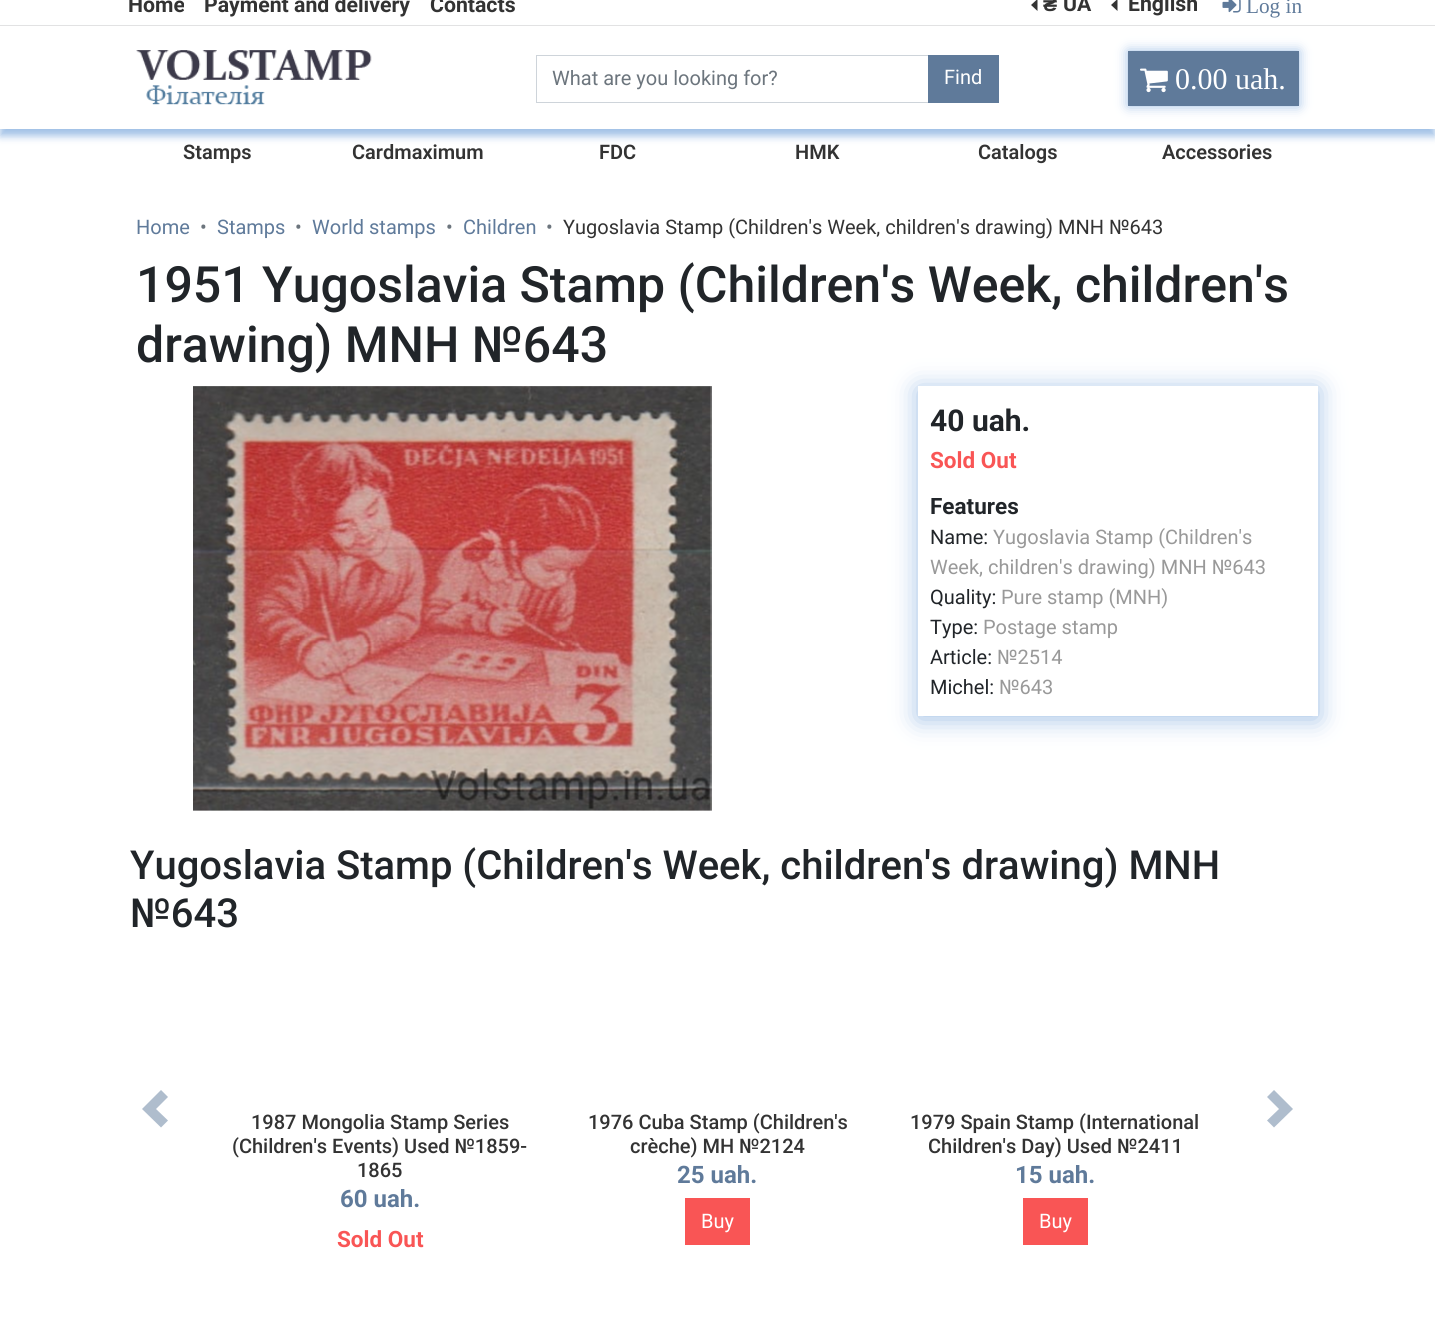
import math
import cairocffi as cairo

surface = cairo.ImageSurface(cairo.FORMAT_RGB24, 1435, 1344)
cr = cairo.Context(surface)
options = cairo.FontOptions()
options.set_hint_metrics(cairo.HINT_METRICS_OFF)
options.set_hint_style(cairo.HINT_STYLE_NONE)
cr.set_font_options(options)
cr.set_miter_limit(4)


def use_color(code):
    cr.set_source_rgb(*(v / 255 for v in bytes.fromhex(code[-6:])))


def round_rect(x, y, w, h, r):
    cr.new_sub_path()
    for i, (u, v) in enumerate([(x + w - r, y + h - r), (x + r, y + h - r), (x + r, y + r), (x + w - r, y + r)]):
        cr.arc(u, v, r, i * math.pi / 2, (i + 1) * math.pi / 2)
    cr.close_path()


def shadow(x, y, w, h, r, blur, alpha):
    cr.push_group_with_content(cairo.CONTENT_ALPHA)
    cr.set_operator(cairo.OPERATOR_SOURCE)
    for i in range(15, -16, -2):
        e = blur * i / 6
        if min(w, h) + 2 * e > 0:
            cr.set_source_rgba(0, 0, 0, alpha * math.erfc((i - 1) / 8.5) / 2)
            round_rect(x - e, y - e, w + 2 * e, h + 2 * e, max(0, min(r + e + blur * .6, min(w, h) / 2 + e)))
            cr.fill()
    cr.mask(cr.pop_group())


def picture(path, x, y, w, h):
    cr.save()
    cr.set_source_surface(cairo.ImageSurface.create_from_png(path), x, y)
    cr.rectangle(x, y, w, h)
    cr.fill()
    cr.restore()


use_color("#ffffff")
cr.paint()
use_color("#e3e3e3")
cr.rectangle(0, 25, 1435, 1)
cr.fill()
cr.select_font_face("Roboto", cairo.FONT_SLANT_NORMAL, cairo.FONT_WEIGHT_BOLD)
cr.set_font_size(21.25)
use_color("#333333")
cr.move_to(128, 12)
cr.show_text("Home")
cr.move_to(204, 12)
cr.show_text("Payment and delivery")
cr.move_to(430, 12)
cr.show_text("Contacts")
cr.new_path()
cr.move_to(1037.5, -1)
cr.line_to(1037.5, 11)
cr.line_to(1031, 5)
cr.close_path()
cr.fill()
cr.select_font_face("Liberation Sans", cairo.FONT_SLANT_NORMAL, cairo.FONT_WEIGHT_BOLD)
cr.move_to(1043, 11)
cr.show_text("₴")
cr.select_font_face("Roboto", cairo.FONT_SLANT_NORMAL, cairo.FONT_WEIGHT_BOLD)
cr.move_to(1063, 11)
cr.show_text("UA")
cr.new_path()
cr.move_to(1117.5, -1)
cr.line_to(1117.5, 11)
cr.line_to(1111, 5)
cr.close_path()
cr.fill()
cr.move_to(1128, 11)
cr.show_text("English")
picture("img1.png", 1222, 0, 19, 13)
cr.select_font_face("Liberation Serif")
use_color("#5f7a9a")
cr.move_to(1246, 13)
cr.show_text("Log in")
cr.save()
cr.set_fill_rule(cairo.FILL_RULE_EVEN_ODD)
cr.new_path()
cr.move_to(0, 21)
cr.line_to(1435, 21)
cr.line_to(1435, 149)
cr.line_to(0, 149)
cr.close_path()
cr.move_to(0, 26)
cr.line_to(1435, 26)
cr.line_to(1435, 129)
cr.line_to(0, 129)
cr.close_path()
cr.clip()
use_color("#a0c0e6")
shadow(0, 34, 1435, 102, 0, 4, 1)
cr.restore()
picture("img2.png", 136, 49, 236, 56)
cr.rectangle(536.5, 55.5, 392, 47)
use_color("#ced4da")
cr.set_line_width(1)
cr.stroke()
cr.select_font_face("Roboto")
cr.set_font_size(20)
use_color("#6c757d")
cr.move_to(552, 85)
cr.show_text("What are you looking for?")
use_color("#5f7a9a")
cr.rectangle(928, 55, 71, 48)
cr.fill()
use_color("#ffffff")
cr.move_to(944, 84)
cr.show_text("Find")
use_color("#a0c0e6")
shadow(1128, 51, 171, 55, 0, 6, 1)
use_color("#5f7a9a")
cr.rectangle(1128, 51, 171, 55)
cr.fill()
picture("img3.png", 1140, 68, 28, 25)
cr.select_font_face("Liberation Serif")
cr.set_font_size(30)
use_color("#ffffff")
cr.move_to(1175, 89)
cr.show_text("0.00 uah.")
cr.select_font_face("Roboto SemiBold")
cr.set_font_size(20)
use_color("#333333")
cr.move_to(183, 159)
cr.show_text("Stamps")
cr.move_to(352, 159)
cr.show_text("Cardmaximum")
cr.move_to(599, 159)
cr.show_text("FDC")
cr.move_to(795, 159)
cr.show_text("HMK")
cr.move_to(978, 159)
cr.show_text("Catalogs")
cr.move_to(1162, 159)
cr.show_text("Accessories")
cr.select_font_face("Roboto")
use_color("#5f7a9a")
cr.move_to(136, 234)
cr.show_text("Home")
use_color("#6c757d")
cr.move_to(200, 234)
cr.show_text("•")
use_color("#5f7a9a")
cr.move_to(217, 234)
cr.show_text("Stamps")
use_color("#6c757d")
cr.move_to(295, 234)
cr.show_text("•")
use_color("#5f7a9a")
cr.move_to(312, 234)
cr.show_text("World stamps")
use_color("#6c757d")
cr.move_to(446, 234)
cr.show_text("•")
use_color("#5f7a9a")
cr.move_to(463, 234)
cr.show_text("Children")
use_color("#6c757d")
cr.move_to(546, 234)
cr.show_text("•")
use_color("#333333")
cr.move_to(563, 234)
cr.show_text("Yugoslavia Stamp (Children's Week, children's drawing) MNH №643")
cr.select_font_face("Roboto Medium")
cr.set_font_size(50)
use_color("#212529")
cr.move_to(136, 302)
cr.show_text("1951 Yugoslavia Stamp (Children's Week, children's")
cr.move_to(136, 362)
cr.show_text("drawing) MNH №643")
picture("img4.png", 193, 386, 519, 425)
cr.save()
cr.set_fill_rule(cairo.FILL_RULE_EVEN_ODD)
cr.new_path()
cr.move_to(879, 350)
cr.line_to(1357, 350)
cr.line_to(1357, 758)
cr.line_to(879, 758)
cr.close_path()
cr.move_to(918, 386)
cr.line_to(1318, 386)
cr.line_to(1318, 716)
cr.line_to(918, 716)
cr.close_path()
cr.clip()
use_color("#a0c0e6")
shadow(918, 389, 400, 330, 0, 12.5, 1)
cr.restore()
cr.select_font_face("Roboto", cairo.FONT_SLANT_NORMAL, cairo.FONT_WEIGHT_BOLD)
cr.set_font_size(30)
cr.move_to(930, 431)
cr.show_text("40 uah.")
cr.set_font_size(22.5)
use_color("#f95555")
cr.move_to(930, 468)
cr.show_text("Sold Out")
use_color("#212529")
cr.move_to(930, 514)
cr.show_text("Features")
cr.select_font_face("Roboto")
cr.set_font_size(20)
cr.move_to(930, 544)
cr.show_text("Name:")
use_color("#999999")
cr.move_to(993, 544)
cr.show_text("Yugoslavia Stamp (Children's")
cr.move_to(930, 574)
cr.show_text("Week, children's drawing) MNH №643")
use_color("#212529")
cr.move_to(930, 604)
cr.show_text("Quality:")
use_color("#999999")
cr.move_to(1001, 604)
cr.show_text("Pure stamp (MNH)")
use_color("#212529")
cr.move_to(930, 634)
cr.show_text("Type:")
use_color("#999999")
cr.move_to(983, 634)
cr.show_text("Postage stamp")
use_color("#212529")
cr.move_to(930, 664)
cr.show_text("Article:")
use_color("#999999")
cr.move_to(997, 664)
cr.show_text("№2514")
use_color("#212529")
cr.move_to(930, 694)
cr.show_text("Michel:")
use_color("#999999")
cr.move_to(999, 694)
cr.show_text("№643")
cr.select_font_face("Roboto Medium")
cr.set_font_size(40)
use_color("#212529")
cr.move_to(130, 879)
cr.show_text("Yugoslavia Stamp (Children's Week, children's drawing) MNH")
cr.move_to(130, 927)
cr.show_text("№643")
use_color("#afbdcd")
cr.new_path()
cr.move_to(161, 1090)
cr.line_to(142, 1109)
cr.line_to(161, 1127.5)
cr.line_to(168, 1120.5)
cr.line_to(156, 1109)
cr.line_to(168, 1097)
cr.close_path()
cr.fill()
cr.new_path()
cr.move_to(1274, 1090)
cr.line_to(1267, 1097)
cr.line_to(1279, 1109)
cr.line_to(1267, 1120.5)
cr.line_to(1274, 1127.5)
cr.line_to(1293, 1109)
cr.close_path()
cr.fill()
cr.set_font_size(20)
use_color("#333333")
cr.move_to(251, 1129)
cr.show_text("1987 Mongolia Stamp Series")
cr.move_to(232, 1153)
cr.show_text("(Children's Events) Used №1859-")
cr.move_to(357, 1177)
cr.show_text("1865")
cr.select_font_face("Roboto", cairo.FONT_SLANT_NORMAL, cairo.FONT_WEIGHT_BOLD)
cr.set_font_size(24)
use_color("#5f7a9a")
cr.move_to(340, 1207)
cr.show_text("60 uah.")
cr.set_font_size(22.5)
use_color("#f95555")
cr.move_to(337, 1247)
cr.show_text("Sold Out")
cr.select_font_face("Roboto Medium")
cr.set_font_size(20)
use_color("#333333")
cr.move_to(588, 1129)
cr.show_text("1976 Cuba Stamp (Children's")
cr.move_to(630, 1153)
cr.show_text("crèche) MH №2124")
cr.select_font_face("Roboto", cairo.FONT_SLANT_NORMAL, cairo.FONT_WEIGHT_BOLD)
cr.set_font_size(24)
use_color("#5f7a9a")
cr.move_to(677, 1183)
cr.show_text("25 uah.")
use_color("#f95555")
cr.rectangle(685, 1198, 65, 47)
cr.fill()
cr.select_font_face("Roboto")
cr.set_font_size(20)
use_color("#ffffff")
cr.move_to(701, 1228)
cr.show_text("Buy")
cr.select_font_face("Roboto Medium")
use_color("#333333")
cr.move_to(910, 1129)
cr.show_text("1979 Spain Stamp (International")
cr.move_to(928, 1153)
cr.show_text("Children's Day) Used №2411")
cr.select_font_face("Roboto", cairo.FONT_SLANT_NORMAL, cairo.FONT_WEIGHT_BOLD)
cr.set_font_size(24)
use_color("#5f7a9a")
cr.move_to(1015, 1183)
cr.show_text("15 uah.")
use_color("#f95555")
cr.rectangle(1023, 1198, 65, 47)
cr.fill()
cr.select_font_face("Roboto")
cr.set_font_size(20)
use_color("#ffffff")
cr.move_to(1039, 1228)
cr.show_text("Buy")
surface.write_to_png("result.png")
